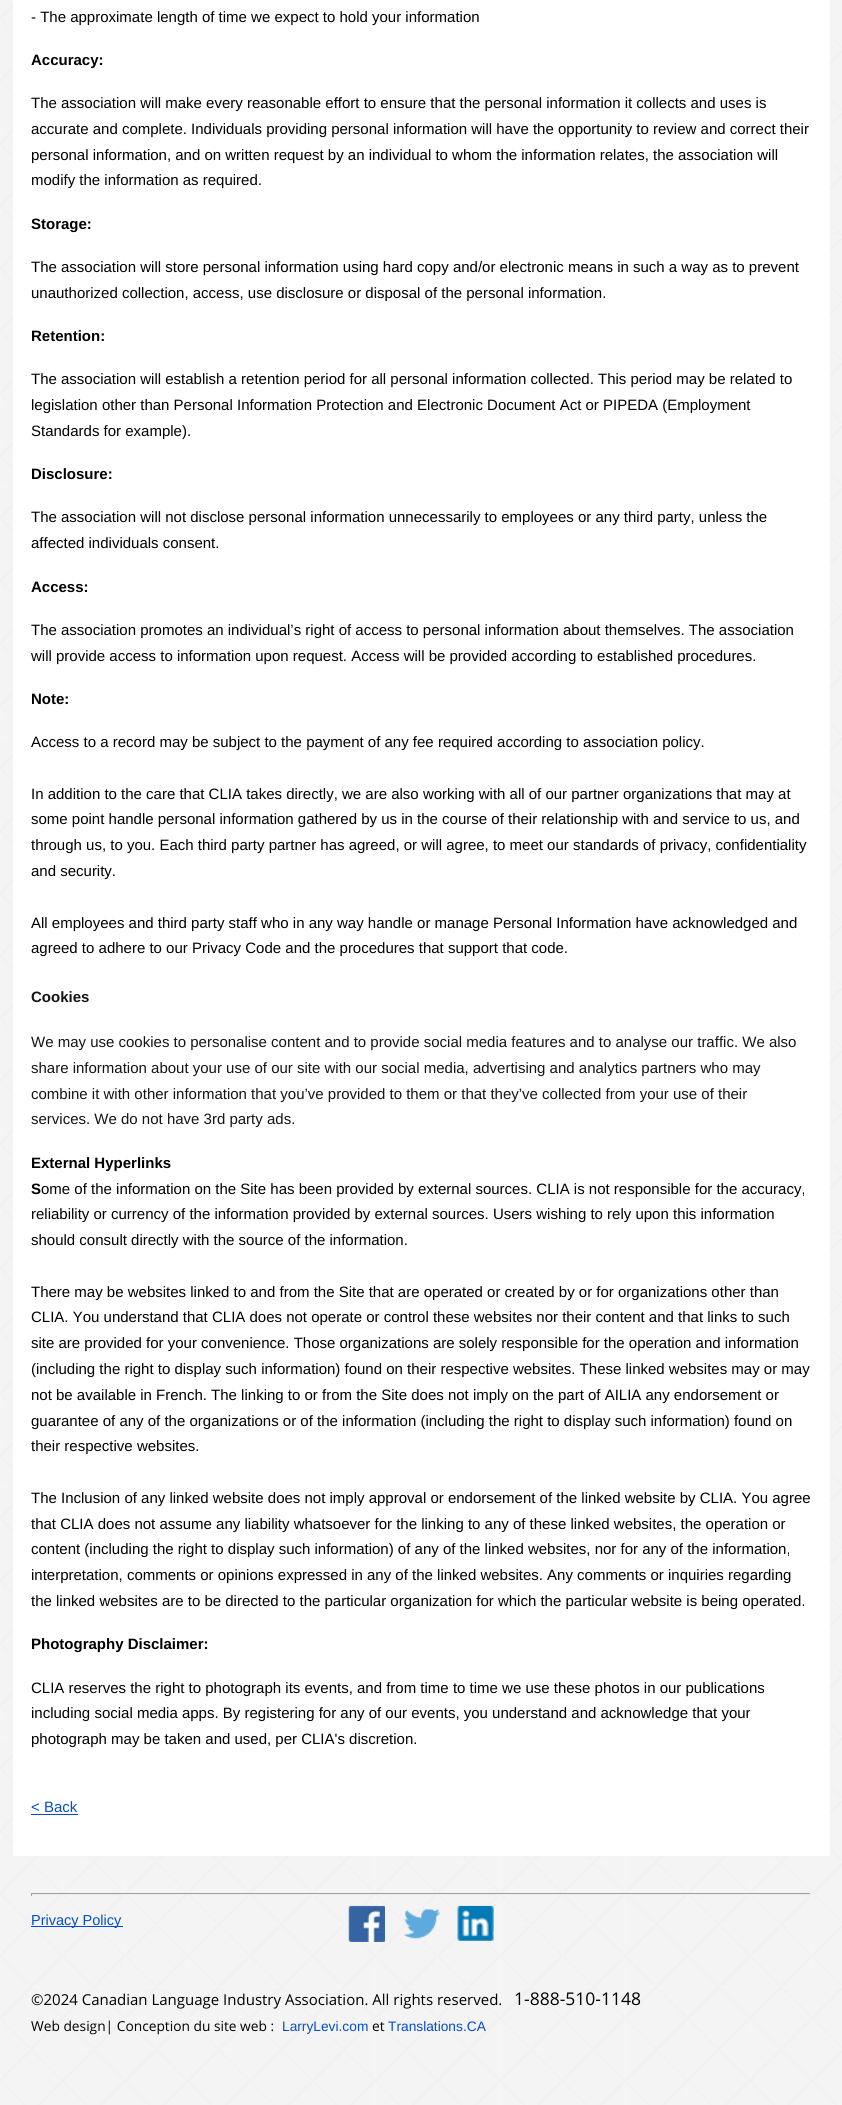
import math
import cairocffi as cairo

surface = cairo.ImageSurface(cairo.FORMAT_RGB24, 842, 2105)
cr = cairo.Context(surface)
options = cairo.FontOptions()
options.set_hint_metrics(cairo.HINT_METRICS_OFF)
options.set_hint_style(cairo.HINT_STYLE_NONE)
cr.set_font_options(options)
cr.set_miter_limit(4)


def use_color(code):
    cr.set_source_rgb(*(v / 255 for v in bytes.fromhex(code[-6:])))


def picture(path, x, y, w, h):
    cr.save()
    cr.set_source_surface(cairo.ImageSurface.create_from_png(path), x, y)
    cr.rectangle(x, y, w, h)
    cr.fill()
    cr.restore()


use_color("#ffffff")
cr.paint()
picture("img1.png", 0, 0, 842, 2105)
use_color("#ffffff")
cr.rectangle(13, 0, 817, 1856)
cr.fill()
cr.select_font_face("Liberation Sans")
cr.set_font_size(15)
use_color("#000000")
cr.move_to(31, 22)
cr.show_text("- The approximate length of time we expect to hold your information")
cr.select_font_face("Liberation Sans", cairo.FONT_SLANT_NORMAL, cairo.FONT_WEIGHT_BOLD)
cr.move_to(31, 65)
cr.show_text("Accuracy:")
cr.select_font_face("Liberation Sans")
cr.move_to(31, 108)
cr.show_text("The association will make every reasonable effort to ensure that the personal information it collects and uses is")
cr.move_to(31, 134)
cr.show_text("accurate and complete. Individuals providing personal information will have the opportunity to review and correct their")
cr.move_to(31, 160)
cr.show_text("personal information, and on written request by an individual to whom the information relates, the association will")
cr.move_to(31, 185)
cr.show_text("modify the information as required.")
cr.select_font_face("Liberation Sans", cairo.FONT_SLANT_NORMAL, cairo.FONT_WEIGHT_BOLD)
cr.move_to(31, 229)
cr.show_text("Storage:")
cr.select_font_face("Liberation Sans")
cr.move_to(31, 272)
cr.show_text("The association will store personal information using hard copy and/or electronic means in such a way as to prevent")
cr.move_to(31, 298)
cr.show_text("unauthorized collection, access, use disclosure or disposal of the personal information.")
cr.select_font_face("Liberation Sans", cairo.FONT_SLANT_NORMAL, cairo.FONT_WEIGHT_BOLD)
cr.move_to(31, 341)
cr.show_text("Retention:")
cr.select_font_face("Liberation Sans")
cr.move_to(31, 384)
cr.show_text("The association will establish a retention period for all personal information collected. This period may be related to")
cr.move_to(31, 410)
cr.show_text("legislation other than Personal Information Protection and Electronic Document Act or PIPEDA (Employment")
cr.move_to(31, 436)
cr.show_text("Standards for example).")
cr.select_font_face("Liberation Sans", cairo.FONT_SLANT_NORMAL, cairo.FONT_WEIGHT_BOLD)
cr.move_to(31, 479)
cr.show_text("Disclosure:")
cr.select_font_face("Liberation Sans")
cr.move_to(31, 522)
cr.show_text("The association will not disclose personal information unnecessarily to employees or any third party, unless the")
cr.move_to(31, 548)
cr.show_text("affected individuals consent.")
cr.select_font_face("Liberation Sans", cairo.FONT_SLANT_NORMAL, cairo.FONT_WEIGHT_BOLD)
cr.move_to(31, 592)
cr.show_text("Access:")
cr.select_font_face("Liberation Sans")
cr.move_to(31, 635)
cr.show_text("The association promotes an individual’s right of access to personal information about themselves. The association")
cr.move_to(31, 661)
cr.show_text("will provide access to information upon request. Access will be provided according to established procedures.")
cr.select_font_face("Liberation Sans", cairo.FONT_SLANT_NORMAL, cairo.FONT_WEIGHT_BOLD)
cr.move_to(31, 704)
cr.show_text("Note:")
cr.select_font_face("Liberation Sans")
cr.move_to(31, 747)
cr.show_text("Access to a record may be subject to the payment of any fee required according to association policy.")
cr.move_to(31, 799)
cr.show_text("In addition to the care that CLIA takes directly, we are also working with all of our partner organizations that may at")
cr.move_to(31, 824)
cr.show_text("some point handle personal information gathered by us in the course of their relationship with and service to us, and")
cr.move_to(31, 850)
cr.show_text("through us, to you. Each third party partner has agreed, or will agree, to meet our standards of privacy, confidentiality")
cr.move_to(31, 876)
cr.show_text("and security.")
cr.move_to(31, 928)
cr.show_text("All employees and third party staff who in any way handle or manage Personal Information have acknowledged and")
cr.move_to(31, 953)
cr.show_text("agreed to adhere to our Privacy Code and the procedures that support that code.")
cr.select_font_face("Liberation Sans", cairo.FONT_SLANT_NORMAL, cairo.FONT_WEIGHT_BOLD)
use_color("#141414")
cr.move_to(31, 1002)
cr.show_text("Cookies")
cr.select_font_face("Liberation Sans")
cr.move_to(31, 1047)
cr.show_text("We may use cookies to personalise content and to provide social media features and to analyse our traffic. We also")
cr.move_to(31, 1073)
cr.show_text("share information about your use of our site with our social media, advertising and analytics partners who may")
cr.move_to(31, 1099)
cr.show_text("combine it with other information that you’ve provided to them or that they’ve collected from your use of their")
cr.move_to(31, 1124)
cr.show_text("services. We do not have 3rd party ads.")
cr.select_font_face("Liberation Sans", cairo.FONT_SLANT_NORMAL, cairo.FONT_WEIGHT_BOLD)
use_color("#000000")
cr.move_to(31, 1168)
cr.show_text("External Hyperlinks")
cr.move_to(31, 1194)
cr.show_text("S")
cr.select_font_face("Liberation Sans")
cr.move_to(41, 1194)
cr.show_text("ome of the information on the Site has been provided by external sources. CLIA is not responsible for the accuracy,")
cr.move_to(31, 1219)
cr.show_text("reliability or currency of the information provided by external sources. Users wishing to rely upon this information")
cr.move_to(31, 1245)
cr.show_text("should consult directly with the source of the information.")
cr.move_to(31, 1297)
cr.show_text("There may be websites linked to and from the Site that are operated or created by or for organizations other than")
cr.move_to(31, 1322)
cr.show_text("CLIA. You understand that CLIA does not operate or control these websites nor their content and that links to such")
cr.move_to(31, 1348)
cr.show_text("site are provided for your convenience. Those organizations are solely responsible for the operation and information")
cr.move_to(31, 1374)
cr.show_text("(including the right to display such information) found on their respective websites. These linked websites may or may")
cr.move_to(31, 1400)
cr.show_text("not be available in French. The linking to or from the Site does not imply on the part of AILIA any endorsement or")
cr.move_to(31, 1426)
cr.show_text("guarantee of any of the organizations or of the information (including the right to display such information) found on")
cr.move_to(31, 1451)
cr.show_text("their respective websites.")
cr.move_to(31, 1503)
cr.show_text("The Inclusion of any linked website does not imply approval or endorsement of the linked website by CLIA. You agree")
cr.move_to(31, 1529)
cr.show_text("that CLIA does not assume any liability whatsoever for the linking to any of these linked websites, the operation or")
cr.move_to(31, 1554)
cr.show_text("content (including the right to display such information) of any of the linked websites, nor for any of the information,")
cr.move_to(31, 1580)
cr.show_text("interpretation, comments or opinions expressed in any of the linked websites. Any comments or inquiries regarding")
cr.move_to(31, 1606)
cr.show_text("the linked websites are to be directed to the particular organization for which the particular website is being operated.")
cr.select_font_face("Liberation Sans", cairo.FONT_SLANT_NORMAL, cairo.FONT_WEIGHT_BOLD)
cr.move_to(31, 1649)
cr.show_text("Photography Disclaimer:")
cr.select_font_face("Liberation Sans")
cr.move_to(31, 1693)
cr.show_text("CLIA reserves the right to photograph its events, and from time to time we use these photos in our publications")
cr.move_to(31, 1718)
cr.show_text("including social media apps. By registering for any of our events, you understand and acknowledge that your")
cr.move_to(31, 1744)
cr.show_text("photograph may be taken and used, per CLIA's discretion.")
use_color("#044cca")
cr.move_to(31, 1812)
cr.show_text("< Back")
cr.rectangle(31, 1814, 47, 1)
cr.fill()
use_color("#9f9f9f")
cr.rectangle(31, 1893, 780, 1)
cr.fill()
use_color("#eeeeee")
cr.rectangle(810, 1893, 1, 3)
cr.fill()
cr.rectangle(31, 1894, 780, 1)
cr.fill()
use_color("#9f9f9f")
cr.rectangle(31, 1893, 1, 3)
cr.fill()
use_color("#044cca")
cr.rectangle(31, 1926, 92, 1)
cr.fill()
cr.set_font_size(14.5)
cr.move_to(31, 1925)
cr.show_text("Privacy Policy")
picture("img2.png", 348, 1905, 37, 37)
picture("img3.png", 403, 1909, 37, 30)
picture("img4.png", 457, 1905, 37, 36)
cr.select_font_face("Open Sans")
cr.set_font_size(15)
use_color("#000000")
cr.move_to(31, 2005)
cr.show_text("©2024 Canadian Language Industry Association. All rights reserved.")
cr.set_font_size(17.5)
cr.move_to(514, 2005)
cr.show_text("1-888-510-1148")
cr.set_font_size(13.75)
cr.move_to(31, 2031)
cr.show_text("Web design| Conception du site web :")
cr.select_font_face("Liberation Sans")
use_color("#044cca")
cr.move_to(282, 2031)
cr.show_text("LarryLevi.com")
cr.select_font_face("Open Sans")
use_color("#000000")
cr.move_to(372, 2031)
cr.show_text("et")
cr.select_font_face("Liberation Sans")
use_color("#044cca")
cr.move_to(388, 2031)
cr.show_text("Translations.CA")
surface.write_to_png("result.png")
